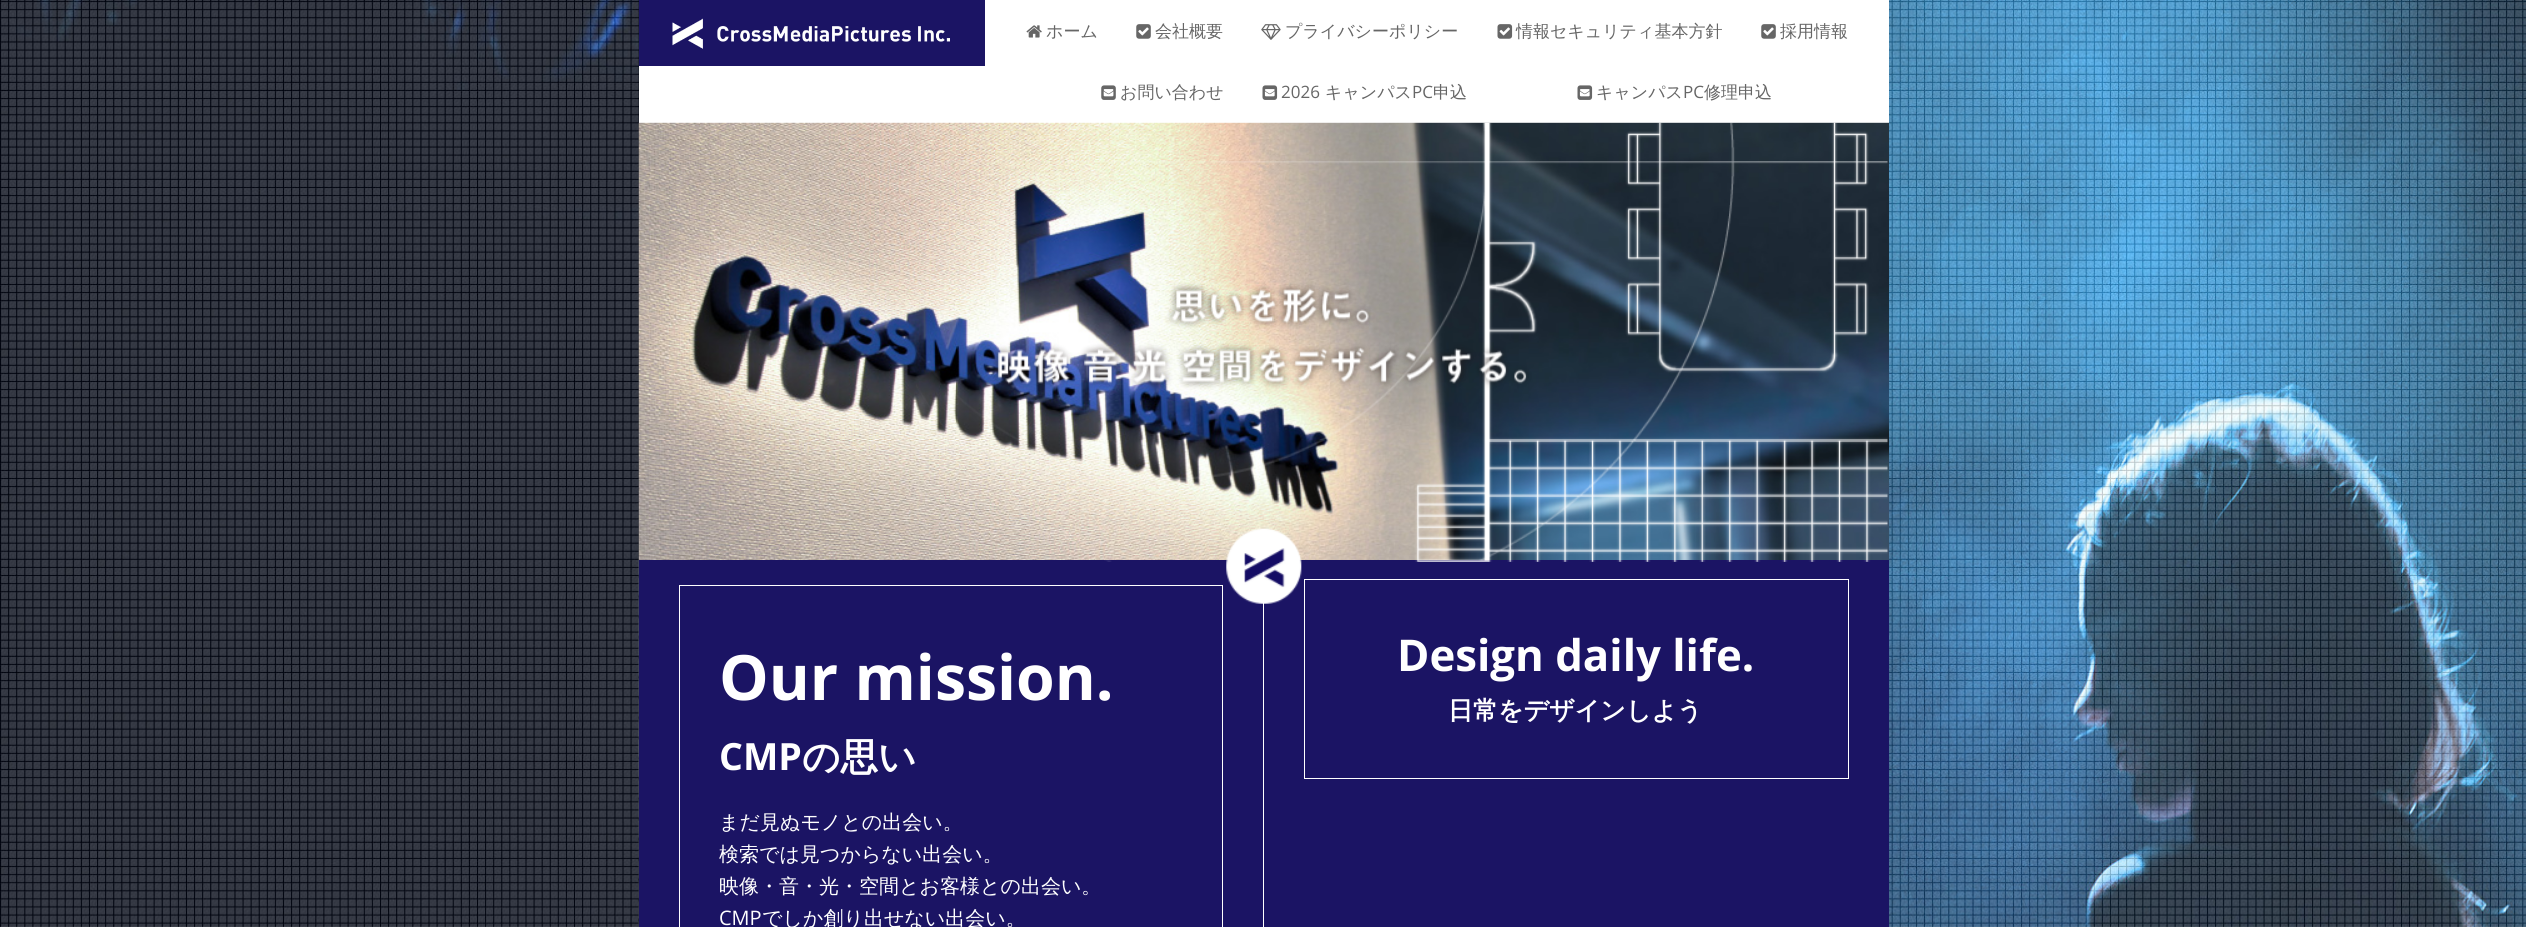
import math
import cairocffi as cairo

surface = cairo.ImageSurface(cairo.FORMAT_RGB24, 2526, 927)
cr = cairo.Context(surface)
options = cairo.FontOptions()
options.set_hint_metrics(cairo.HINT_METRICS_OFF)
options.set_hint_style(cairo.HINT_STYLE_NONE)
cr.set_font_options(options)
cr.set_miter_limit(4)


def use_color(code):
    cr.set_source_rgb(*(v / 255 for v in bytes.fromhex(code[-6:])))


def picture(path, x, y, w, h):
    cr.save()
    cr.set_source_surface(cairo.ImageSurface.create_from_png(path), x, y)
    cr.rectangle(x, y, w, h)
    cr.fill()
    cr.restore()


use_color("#ffffff")
cr.paint()
picture("img1.png", 0, 0, 2526, 927)
use_color("#ffffff")
cr.rectangle(639, 0, 1250, 123)
cr.fill()
picture("img9.png", 638, 122, 1251, 438)
use_color("#1b1464")
cr.rectangle(639, 560, 624, 367)
cr.fill()
cr.rectangle(1264, 560, 625, 367)
cr.fill()
picture("img10.png", 916, 122, 972, 440)
cr.set_source_rgba(1, 1, 1, 0.6)
cr.rectangle(639, 122, 1250, 1)
cr.fill()
use_color("#1b1464")
cr.rectangle(639, 0, 346, 66)
cr.fill()
picture("img2.png", 672, 18, 278, 31)
picture("img3.png", 1026, 25, 16, 13)
cr.select_font_face("WenQuanYi Zen Hei Medium")
cr.set_font_size(17)
use_color("#666666")
cr.move_to(1046, 37)
cr.show_text("ホーム")
picture("img4.png", 1136, 24, 15, 15)
cr.move_to(1155, 37)
cr.show_text("会社概要")
picture("img5.png", 1261, 24, 20, 16)
cr.move_to(1285, 37)
cr.show_text("プライバシーポリシー")
picture("img6.png", 1497, 24, 16, 15)
cr.move_to(1516, 37)
cr.show_text("情報セキュリティ基本方針")
picture("img4.png", 1761, 24, 15, 15)
cr.move_to(1780, 37)
cr.show_text("採用情報")
picture("img7.png", 1101, 85, 15, 15)
cr.move_to(1120, 98)
cr.show_text("お問い合わせ")
picture("img8.png", 1262, 85, 16, 15)
cr.select_font_face("Open Sans")
cr.move_to(1281, 98)
cr.show_text("2026")
cr.select_font_face("WenQuanYi Zen Hei Medium")
cr.move_to(1325, 98)
cr.show_text("キャンパス")
cr.select_font_face("Open Sans")
cr.move_to(1412, 98)
cr.show_text("PC")
cr.select_font_face("WenQuanYi Zen Hei Medium")
cr.move_to(1433, 98)
cr.show_text("申込")
picture("img8.png", 1577, 85, 16, 15)
cr.move_to(1596, 98)
cr.show_text("キャンパス")
cr.select_font_face("Open Sans")
cr.move_to(1683, 98)
cr.show_text("PC")
cr.select_font_face("WenQuanYi Zen Hei Medium")
cr.move_to(1704, 98)
cr.show_text("修理申込")
use_color("#ffffff")
cr.rectangle(1263, 603, 1, 324)
cr.fill()
picture("img11.png", 1226, 528, 76, 76)
picture("img12.png", 638, 560, 1, 367)
cr.rectangle(679.5, 585.5, 543, 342)
cr.set_line_width(1)
cr.stroke()
cr.select_font_face("Open Sans", cairo.FONT_SLANT_NORMAL, cairo.FONT_WEIGHT_BOLD)
cr.set_font_size(62.5)
cr.move_to(719, 700)
cr.show_text("Our mission.")
cr.set_font_size(37.5)
cr.move_to(719, 770)
cr.show_text("CMP")
cr.select_font_face("WenQuanYi Zen Hei", cairo.FONT_SLANT_NORMAL, cairo.FONT_WEIGHT_BOLD)
cr.move_to(802, 770)
cr.show_text("の思い")
cr.select_font_face("WenQuanYi Zen Hei Medium")
cr.set_font_size(20)
cr.move_to(719, 829)
cr.show_text("まだ見ぬモノとの出会い。")
cr.move_to(719, 861)
cr.show_text("検索では見つからない出会い。")
cr.move_to(719, 893)
cr.show_text("映像・音・光・空間とお客様との出会い。")
cr.select_font_face("Open Sans")
cr.move_to(719, 925)
cr.show_text("CMP")
cr.select_font_face("WenQuanYi Zen Hei Medium")
cr.move_to(762, 925)
cr.show_text("でしか創り出せない出会い。")
cr.rectangle(1304.5, 579.5, 544, 199)
cr.stroke()
cr.select_font_face("Open Sans", cairo.FONT_SLANT_NORMAL, cairo.FONT_WEIGHT_BOLD)
cr.set_font_size(43.75)
cr.move_to(1397, 671)
cr.show_text("Design daily life.")
cr.select_font_face("WenQuanYi Zen Hei", cairo.FONT_SLANT_NORMAL, cairo.FONT_WEIGHT_BOLD)
cr.set_font_size(25)
cr.move_to(1448, 719)
cr.show_text("日常をデザインしよう")
surface.write_to_png("result.png")
